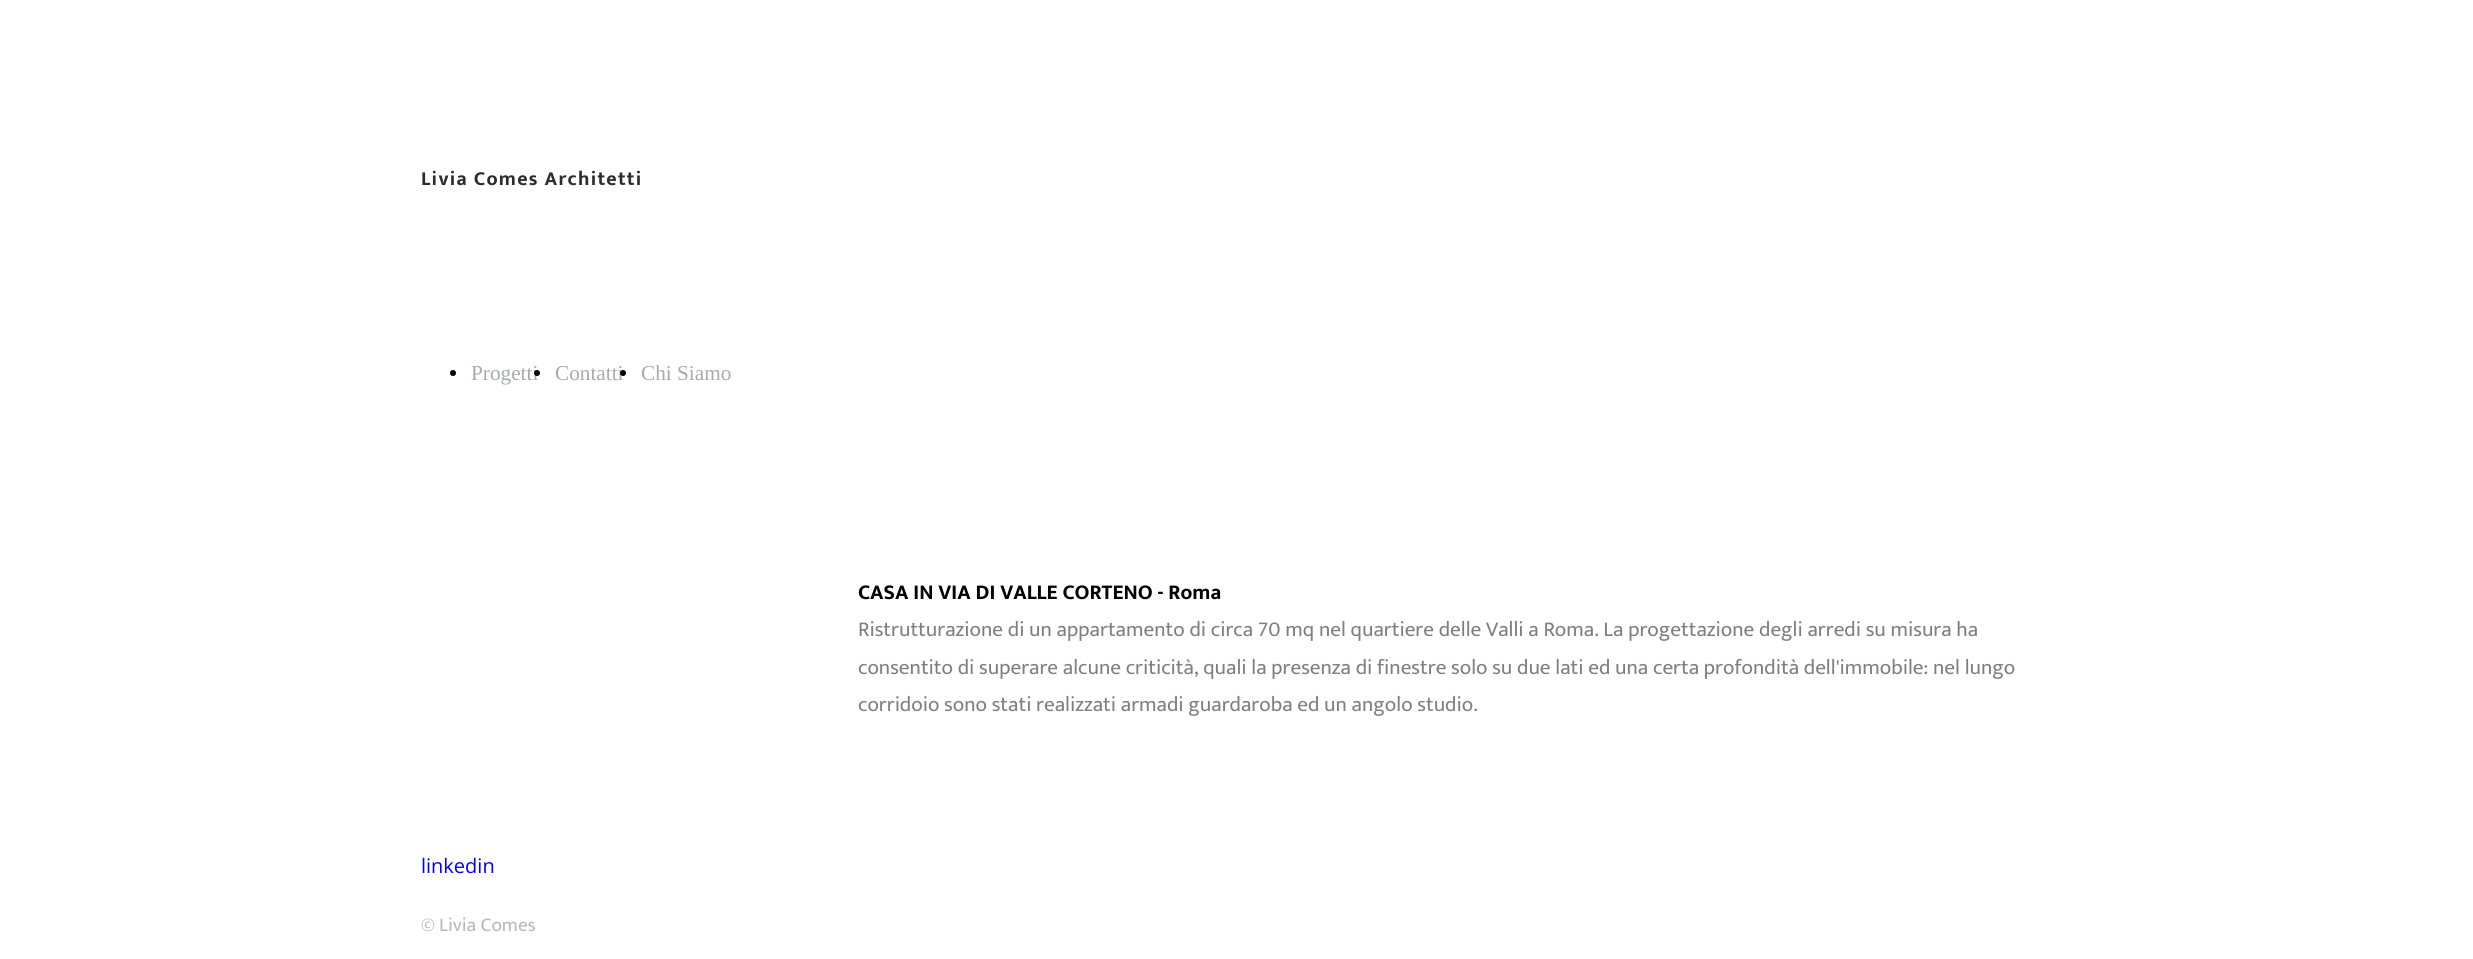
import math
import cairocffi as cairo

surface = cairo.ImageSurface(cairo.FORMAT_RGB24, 2473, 959)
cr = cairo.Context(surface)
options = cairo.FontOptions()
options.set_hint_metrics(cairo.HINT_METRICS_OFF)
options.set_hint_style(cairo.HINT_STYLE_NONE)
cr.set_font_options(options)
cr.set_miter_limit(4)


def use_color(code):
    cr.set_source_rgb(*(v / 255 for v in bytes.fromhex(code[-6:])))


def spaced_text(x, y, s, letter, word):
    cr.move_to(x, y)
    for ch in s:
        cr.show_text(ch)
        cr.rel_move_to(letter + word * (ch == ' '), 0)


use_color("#ffffff")
cr.paint()
cr.select_font_face("Ek Mukta", cairo.FONT_SLANT_NORMAL, cairo.FONT_WEIGHT_BOLD)
cr.set_font_size(20)
use_color("#2b2d30")
spaced_text(421, 185, "Livia Comes Architetti", 1.25, 0)
use_color("#000000")
cr.new_path()
cr.arc(453, 373, 3, 0, 2 * math.pi)
cr.fill()
cr.select_font_face("Liberation Serif")
cr.set_font_size(21.25)
use_color("#a8aaad")
cr.move_to(471, 380)
cr.show_text("Progetti")
use_color("#000000")
cr.new_path()
cr.arc(537, 373, 3, 0, 2 * math.pi)
cr.fill()
use_color("#a8aaad")
cr.move_to(555, 380)
cr.show_text("Contatti")
use_color("#000000")
cr.new_path()
cr.arc(623, 373, 3, 0, 2 * math.pi)
cr.fill()
use_color("#a8aaad")
cr.move_to(641, 380)
cr.show_text("Chi Siamo")
cr.select_font_face("Ek Mukta", cairo.FONT_SLANT_NORMAL, cairo.FONT_WEIGHT_BOLD)
use_color("#000000")
cr.move_to(858, 599)
cr.show_text("CASA IN VIA DI VALLE CORTENO - Roma")
cr.select_font_face("Ek Mukta")
use_color("#7f7f7f")
cr.move_to(858, 636)
cr.show_text("Ristrutturazione di un appartamento di circa 70 mq nel quartiere delle Valli a Roma. La progettazione degli arredi su misura ha")
cr.move_to(858, 674)
cr.show_text("consentito di superare alcune criticità, quali la presenza di finestre solo su due lati ed una certa profondità dell'immobile: nel lungo")
cr.move_to(858, 711)
cr.show_text("corridoio sono stati realizzati armadi guardaroba ed un angolo studio.")
cr.select_font_face("Open Sans")
cr.set_font_size(20)
use_color("#0000ff")
cr.move_to(421, 873)
cr.show_text("linkedin")
cr.select_font_face("Ek Mukta")
cr.set_font_size(19.5)
use_color("#b8b8b8")
cr.move_to(421, 931)
cr.show_text("© Livia Comes")
surface.write_to_png("result.png")
